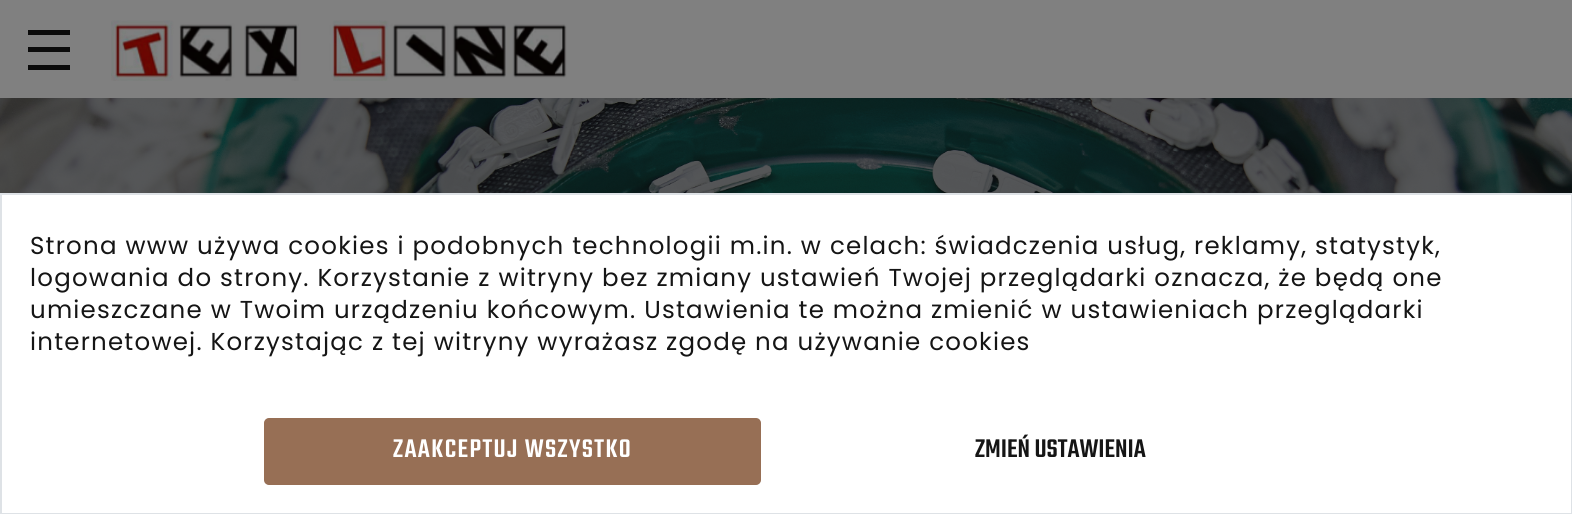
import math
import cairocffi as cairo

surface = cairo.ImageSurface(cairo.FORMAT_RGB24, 1572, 514)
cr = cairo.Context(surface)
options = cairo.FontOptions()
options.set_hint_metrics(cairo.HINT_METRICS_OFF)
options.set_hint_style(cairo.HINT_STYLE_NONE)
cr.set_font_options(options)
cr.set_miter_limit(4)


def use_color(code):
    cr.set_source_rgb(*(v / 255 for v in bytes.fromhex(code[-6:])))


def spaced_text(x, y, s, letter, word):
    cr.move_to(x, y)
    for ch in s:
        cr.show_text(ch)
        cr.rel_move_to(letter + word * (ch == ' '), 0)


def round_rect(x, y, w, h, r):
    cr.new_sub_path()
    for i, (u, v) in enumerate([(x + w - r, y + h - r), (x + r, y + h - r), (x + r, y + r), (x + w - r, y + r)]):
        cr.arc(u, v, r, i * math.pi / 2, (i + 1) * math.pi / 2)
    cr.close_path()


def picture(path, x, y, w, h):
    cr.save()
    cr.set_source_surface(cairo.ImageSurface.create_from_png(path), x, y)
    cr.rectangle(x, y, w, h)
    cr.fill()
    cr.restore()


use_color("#808080")
cr.paint()
use_color("#0b0b0b")
cr.rectangle(28, 47, 42, 5)
cr.fill()
cr.rectangle(28, 30, 42, 5)
cr.fill()
cr.rectangle(28, 65, 42, 5)
cr.fill()
picture("img1.png", 111, 20, 456, 61)
picture("img2.png", 0, 98, 1572, 95)
use_color("#ffffff")
cr.rectangle(1, 194, 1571, 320)
cr.fill_preserve()
use_color("#dee2e6")
cr.stroke()
cr.select_font_face("Poppins")
cr.set_font_size(24.5)
use_color("#151515")
spaced_text(30, 254, "Strona www używa cookies i podobnych technologii m.in. w celach: świadczenia usług, reklamy, statystyk,", 1.22, 0)
spaced_text(30, 286, "logowania do strony. Korzystanie z witryny bez zmiany ustawień Twojej przeglądarki oznacza, że będą one", 1.22, 0)
spaced_text(30, 318, "umieszczane w Twoim urządzeniu końcowym. Ustawienia te można zmienić w ustawieniach przeglądarki", 1.22, 0)
spaced_text(30, 350, "internetowej. Korzystając z tej witryny wyrażasz zgodę na używanie cookies", 1.22, 0)
use_color("#976f55")
round_rect(265, 419, 495, 65, 4)
cr.fill_preserve()
cr.stroke()
cr.select_font_face("Teko Medium")
cr.set_font_size(28)
use_color("#ffffff")
spaced_text(393, 457, "ZAAKCEPTUJ WSZYSTKO", 1.4, 0)
use_color("#151515")
cr.move_to(975, 457)
cr.show_text("ZMIEŃ USTAWIENIA")
surface.write_to_png("result.png")
